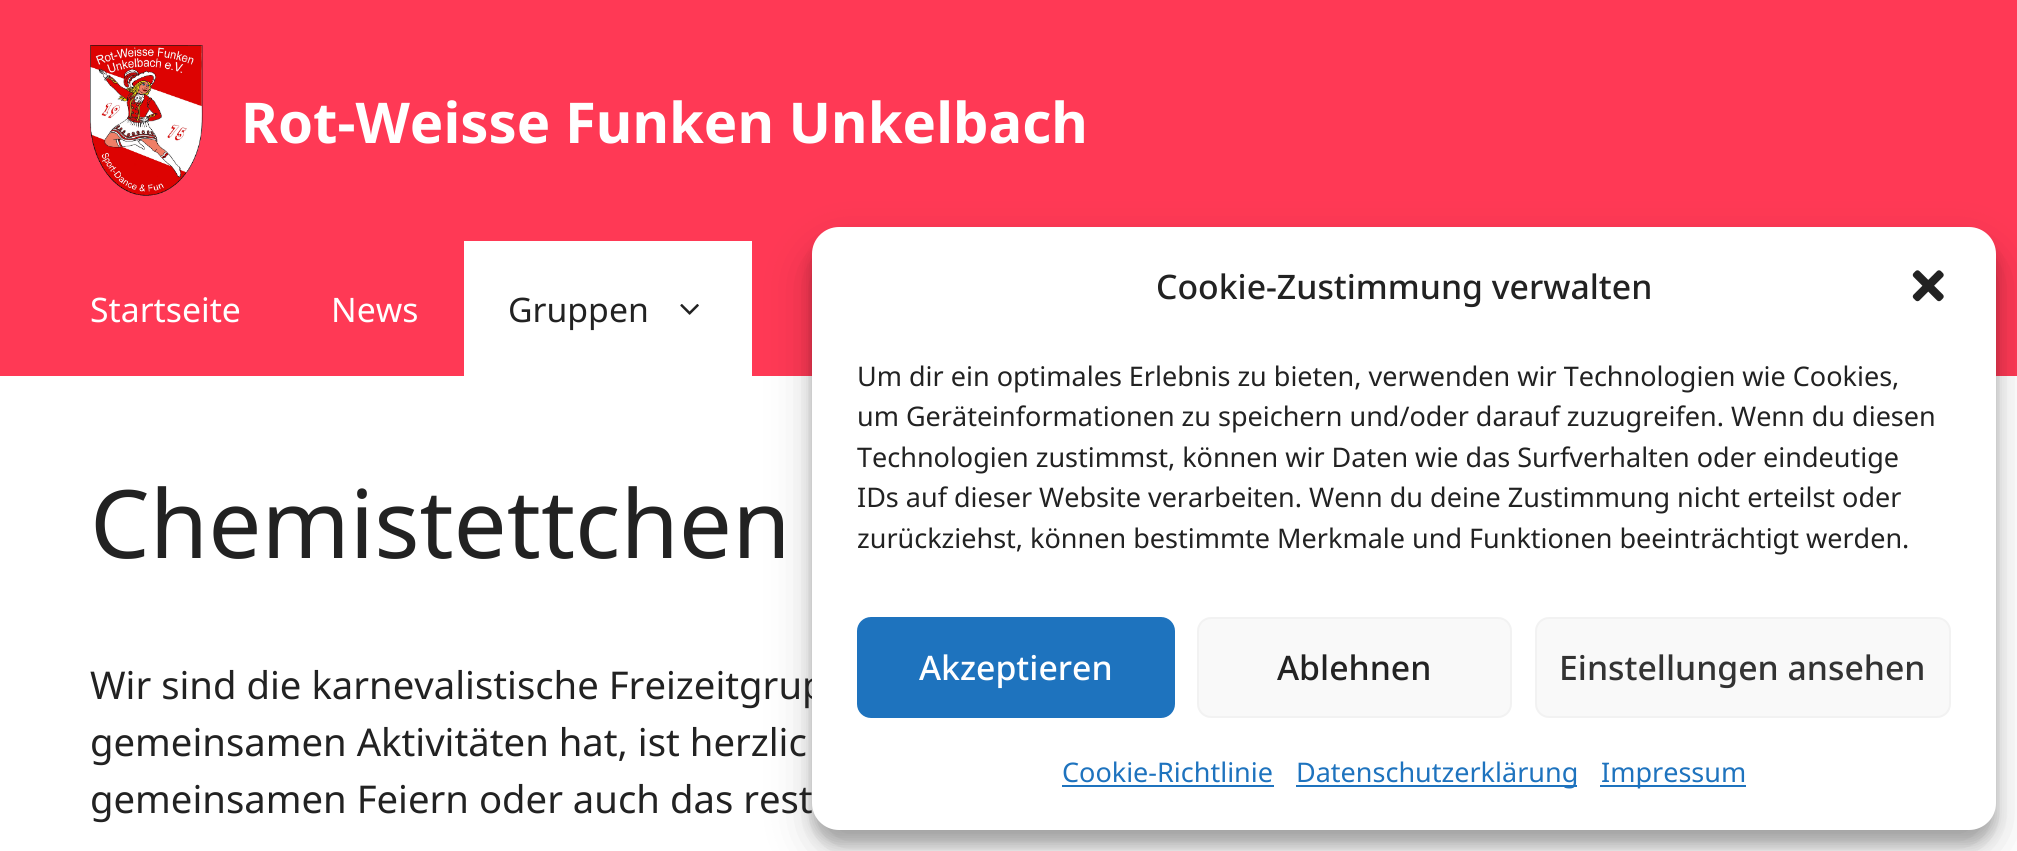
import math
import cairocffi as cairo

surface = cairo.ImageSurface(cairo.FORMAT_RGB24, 2017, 851)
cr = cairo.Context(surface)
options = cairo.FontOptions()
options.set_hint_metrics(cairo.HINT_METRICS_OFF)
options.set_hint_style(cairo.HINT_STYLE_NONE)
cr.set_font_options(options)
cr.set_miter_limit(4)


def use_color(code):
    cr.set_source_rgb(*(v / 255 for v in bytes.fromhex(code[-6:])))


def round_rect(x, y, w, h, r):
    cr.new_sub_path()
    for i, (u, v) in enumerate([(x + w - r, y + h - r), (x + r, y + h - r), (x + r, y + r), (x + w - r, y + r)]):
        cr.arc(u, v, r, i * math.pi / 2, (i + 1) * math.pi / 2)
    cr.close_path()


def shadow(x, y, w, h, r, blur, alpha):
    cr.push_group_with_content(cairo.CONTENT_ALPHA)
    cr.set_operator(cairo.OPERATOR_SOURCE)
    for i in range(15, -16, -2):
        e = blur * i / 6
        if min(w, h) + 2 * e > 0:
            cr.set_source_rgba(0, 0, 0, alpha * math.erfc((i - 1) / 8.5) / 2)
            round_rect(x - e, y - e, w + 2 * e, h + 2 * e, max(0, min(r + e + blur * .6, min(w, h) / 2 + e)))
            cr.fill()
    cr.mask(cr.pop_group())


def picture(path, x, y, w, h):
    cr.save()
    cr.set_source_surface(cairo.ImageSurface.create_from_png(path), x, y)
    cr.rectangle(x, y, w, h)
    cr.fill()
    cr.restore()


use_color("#ff3955")
cr.paint()
picture("img1.png", 90, 45, 113, 151)
cr.select_font_face("Noto Sans", cairo.FONT_SLANT_NORMAL, cairo.FONT_WEIGHT_BOLD)
cr.set_font_size(56.25)
use_color("#ffffff")
cr.move_to(241, 143)
cr.show_text("Rot-Weisse Funken Unkelbach")
cr.select_font_face("Noto Sans")
cr.set_font_size(33.75)
cr.move_to(90, 322)
cr.show_text("Startseite")
cr.move_to(331, 322)
cr.show_text("News")
cr.rectangle(464, 241, 288, 135)
cr.fill()
use_color("#222222")
cr.move_to(508, 322)
cr.show_text("Gruppen")
picture("img2.png", 680, 304, 19, 11)
use_color("#ffffff")
cr.rectangle(0, 376, 2017, 475)
cr.fill()
use_color("#000000")
shadow(812, 241, 1184, 603, 27, 7, 0.23)
shadow(812, 250, 1184, 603, 27, 22.5, 0.19)
cr.set_font_size(38.25)
use_color("#222222")
cr.move_to(90, 699)
cr.show_text("Wir sind die karnevalistische Freizeitgrup")
use_color("#ffffff")
round_rect(812, 227, 1184, 603, 27)
cr.fill()
cr.select_font_face("Noto Sans Medium")
cr.set_font_size(33.75)
use_color("#222222")
cr.move_to(1156, 299)
cr.show_text("Cookie-Zustimmung verwalten")
picture("img3.png", 1912, 270, 32, 32)
cr.select_font_face("Noto Sans")
cr.set_font_size(27)
cr.move_to(857, 386)
cr.show_text("Um dir ein optimales Erlebnis zu bieten, verwenden wir Technologien wie Cookies,")
cr.move_to(857, 426)
cr.show_text("um Geräteinformationen zu speichern und/oder darauf zuzugreifen. Wenn du diesen")
cr.move_to(857, 467)
cr.show_text("Technologien zustimmst, können wir Daten wie das Surfverhalten oder eindeutige")
cr.move_to(857, 507)
cr.show_text("IDs auf dieser Website verarbeiten. Wenn du deine Zustimmung nicht erteilst oder")
cr.move_to(857, 548)
cr.show_text("zurückziehst, können bestimmte Merkmale und Funktionen beeinträchtigt werden.")
use_color("#1e73be")
round_rect(858, 618, 316, 99, 13)
cr.fill_preserve()
cr.stroke()
cr.select_font_face("Noto Sans Medium")
cr.set_font_size(33.75)
use_color("#ffffff")
cr.move_to(919, 680)
cr.show_text("Akzeptieren")
use_color("#f9f9f9")
round_rect(1198, 618, 313, 99, 13)
cr.fill_preserve()
use_color("#f2f2f2")
cr.stroke()
use_color("#222222")
cr.move_to(1277, 680)
cr.show_text("Ablehnen")
use_color("#f9f9f9")
round_rect(1536, 618, 414, 99, 13)
cr.fill_preserve()
use_color("#f2f2f2")
cr.stroke()
use_color("#333333")
cr.move_to(1559, 680)
cr.show_text("Einstellungen ansehen")
cr.select_font_face("Noto Sans")
cr.set_font_size(27)
use_color("#1e73be")
cr.move_to(1062, 782)
cr.show_text("Cookie-Richtlinie")
cr.rectangle(1062, 785, 212, 2)
cr.fill()
cr.rectangle(1296, 785, 281, 2)
cr.fill()
cr.move_to(1296, 782)
cr.show_text("Datenschutzerklärung")
cr.rectangle(1600, 785, 146, 2)
cr.fill()
cr.move_to(1601, 782)
cr.show_text("Impressum")
cr.set_font_size(94.5)
use_color("#222222")
cr.move_to(90, 558)
cr.show_text("Chemistettchen")
cr.set_font_size(38.25)
cr.move_to(90, 756)
cr.show_text("gemeinsamen Aktivitäten hat, ist herzlic")
cr.move_to(90, 813)
cr.show_text("gemeinsamen Feiern oder auch das rest")
surface.write_to_png("result.png")
